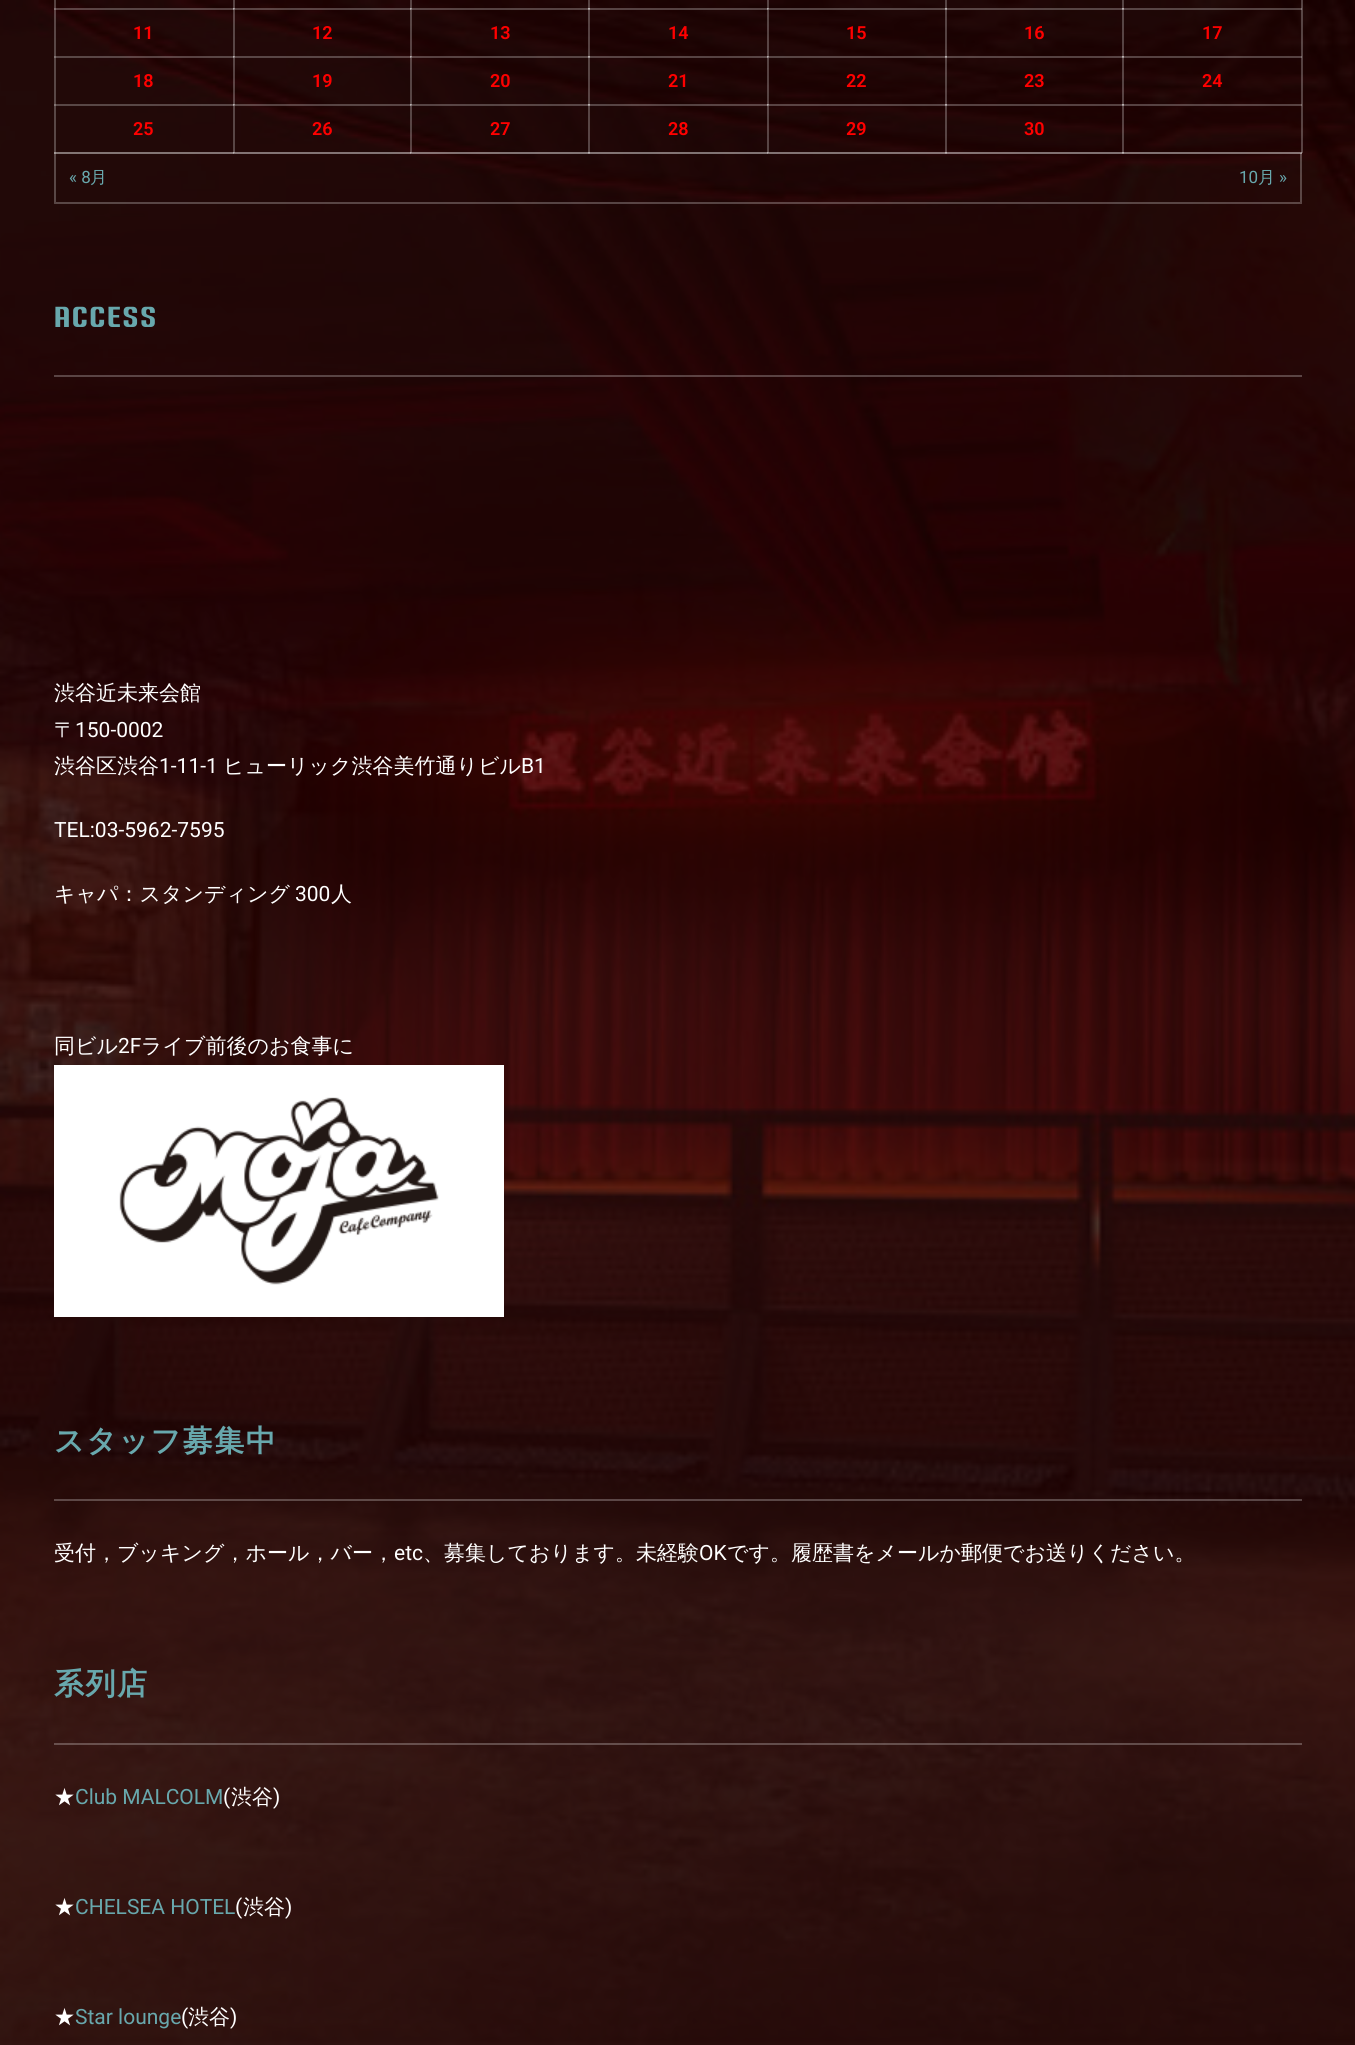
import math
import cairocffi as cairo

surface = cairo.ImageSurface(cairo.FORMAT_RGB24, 1355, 2045)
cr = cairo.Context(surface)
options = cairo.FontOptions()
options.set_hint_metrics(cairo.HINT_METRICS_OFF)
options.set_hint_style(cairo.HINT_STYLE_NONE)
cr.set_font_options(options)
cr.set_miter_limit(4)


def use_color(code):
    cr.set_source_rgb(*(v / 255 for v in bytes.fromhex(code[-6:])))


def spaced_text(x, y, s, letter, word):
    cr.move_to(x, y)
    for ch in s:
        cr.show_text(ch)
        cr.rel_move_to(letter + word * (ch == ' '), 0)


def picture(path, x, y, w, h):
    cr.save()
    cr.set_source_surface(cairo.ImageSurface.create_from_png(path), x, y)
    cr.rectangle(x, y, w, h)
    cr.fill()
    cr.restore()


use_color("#ffffff")
cr.paint()
picture("img1.png", 0, 0, 1355, 2045)
cr.set_source_rgba(1, 1, 1, 0.25)
cr.rectangle(1301, 0, 2, 153)
cr.fill()
cr.rectangle(54, 152, 1248, 2)
cr.fill()
cr.rectangle(54, 0, 2, 153)
cr.fill()
cr.rectangle(1122, 152, 180, 2)
cr.fill()
cr.rectangle(1122, 104, 2, 49)
cr.fill()
cr.rectangle(1122, 104, 180, 2)
cr.fill()
cr.rectangle(1122, 56, 2, 49)
cr.fill()
cr.rectangle(1122, 56, 180, 2)
cr.fill()
cr.rectangle(1122, 8, 2, 49)
cr.fill()
cr.rectangle(1122, 8, 180, 2)
cr.fill()
cr.rectangle(1122, 0, 2, 9)
cr.fill()
cr.rectangle(945, 152, 179, 2)
cr.fill()
cr.rectangle(945, 104, 2, 49)
cr.fill()
cr.rectangle(945, 104, 179, 2)
cr.fill()
cr.rectangle(945, 56, 2, 49)
cr.fill()
cr.rectangle(945, 56, 179, 2)
cr.fill()
cr.rectangle(945, 8, 2, 49)
cr.fill()
cr.rectangle(945, 8, 179, 2)
cr.fill()
cr.rectangle(945, 0, 2, 9)
cr.fill()
cr.rectangle(767, 152, 180, 2)
cr.fill()
cr.rectangle(767, 104, 2, 49)
cr.fill()
cr.rectangle(767, 104, 180, 2)
cr.fill()
cr.rectangle(767, 56, 2, 49)
cr.fill()
cr.rectangle(767, 56, 180, 2)
cr.fill()
cr.rectangle(767, 8, 2, 49)
cr.fill()
cr.rectangle(767, 8, 180, 2)
cr.fill()
cr.rectangle(767, 0, 2, 9)
cr.fill()
cr.rectangle(588, 152, 180, 2)
cr.fill()
cr.rectangle(588, 104, 2, 49)
cr.fill()
cr.rectangle(588, 104, 180, 2)
cr.fill()
cr.rectangle(588, 56, 2, 49)
cr.fill()
cr.rectangle(588, 56, 180, 2)
cr.fill()
cr.rectangle(588, 8, 2, 49)
cr.fill()
cr.rectangle(588, 8, 180, 2)
cr.fill()
cr.rectangle(588, 0, 2, 9)
cr.fill()
cr.rectangle(410, 152, 180, 2)
cr.fill()
cr.rectangle(410, 104, 2, 49)
cr.fill()
cr.rectangle(410, 104, 180, 2)
cr.fill()
cr.rectangle(410, 56, 2, 49)
cr.fill()
cr.rectangle(410, 56, 180, 2)
cr.fill()
cr.rectangle(410, 8, 2, 49)
cr.fill()
cr.rectangle(410, 8, 180, 2)
cr.fill()
cr.rectangle(410, 0, 2, 9)
cr.fill()
cr.rectangle(233, 152, 178, 2)
cr.fill()
cr.rectangle(233, 104, 2, 49)
cr.fill()
cr.rectangle(233, 104, 178, 2)
cr.fill()
cr.rectangle(233, 56, 2, 49)
cr.fill()
cr.rectangle(233, 56, 178, 2)
cr.fill()
cr.rectangle(233, 8, 2, 49)
cr.fill()
cr.rectangle(233, 8, 178, 2)
cr.fill()
cr.rectangle(233, 0, 2, 9)
cr.fill()
cr.rectangle(54, 8, 180, 2)
cr.fill()
cr.rectangle(54, 56, 180, 2)
cr.fill()
cr.select_font_face("Roboto SemiBold")
cr.set_font_size(18)
use_color("#ff0000")
cr.move_to(133, 39)
cr.show_text("11")
cr.move_to(312, 39)
cr.show_text("12")
cr.move_to(490, 39)
cr.show_text("13")
cr.move_to(668, 39)
cr.show_text("14")
cr.move_to(846, 39)
cr.show_text("15")
cr.move_to(1024, 39)
cr.show_text("16")
cr.move_to(1202, 39)
cr.show_text("17")
cr.set_source_rgba(1, 1, 1, 0.25)
cr.rectangle(54, 104, 180, 2)
cr.fill()
use_color("#ff0000")
cr.move_to(133, 87)
cr.show_text("18")
cr.move_to(312, 87)
cr.show_text("19")
cr.move_to(490, 87)
cr.show_text("20")
cr.move_to(668, 87)
cr.show_text("21")
cr.move_to(846, 87)
cr.show_text("22")
cr.move_to(1024, 87)
cr.show_text("23")
cr.move_to(1202, 87)
cr.show_text("24")
cr.set_source_rgba(1, 1, 1, 0.25)
cr.rectangle(54, 152, 180, 2)
cr.fill()
use_color("#ff0000")
cr.move_to(133, 135)
cr.show_text("25")
cr.move_to(312, 135)
cr.show_text("26")
cr.move_to(490, 135)
cr.show_text("27")
cr.move_to(668, 135)
cr.show_text("28")
cr.move_to(846, 135)
cr.show_text("29")
cr.move_to(1024, 135)
cr.show_text("30")
cr.set_source_rgba(1, 1, 1, 0.25)
cr.new_path()
cr.move_to(1302, 153)
cr.line_to(1302, 204)
cr.line_to(1300, 202)
cr.line_to(1300, 153)
cr.close_path()
cr.fill()
cr.new_path()
cr.move_to(1302, 204)
cr.line_to(54, 204)
cr.line_to(56, 202)
cr.line_to(1300, 202)
cr.close_path()
cr.fill()
cr.new_path()
cr.move_to(54, 204)
cr.line_to(54, 153)
cr.line_to(56, 153)
cr.line_to(56, 202)
cr.close_path()
cr.fill()
cr.select_font_face("Roboto")
cr.set_font_size(17)
use_color("#68a8ad")
cr.move_to(69, 183)
cr.show_text("« 8")
cr.select_font_face("WenQuanYi Zen Hei Medium")
cr.move_to(90, 183)
cr.show_text("月")
cr.select_font_face("Roboto")
cr.move_to(1239, 183)
cr.show_text("10")
cr.select_font_face("WenQuanYi Zen Hei Medium")
cr.move_to(1258, 183)
cr.show_text("月")
cr.select_font_face("Roboto")
cr.move_to(1279, 183)
cr.show_text("»")
cr.set_source_rgba(1, 1, 1, 0.25)
cr.rectangle(54, 375, 1248, 2)
cr.fill()
cr.select_font_face("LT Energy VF", cairo.FONT_SLANT_NORMAL, cairo.FONT_WEIGHT_BOLD)
cr.set_font_size(30)
use_color("#68a8ad")
spaced_text(54, 327, "ACCESS", 1.5, 0)
cr.select_font_face("WenQuanYi Zen Hei Medium")
cr.set_font_size(21)
use_color("#ffffff")
cr.move_to(54, 700)
cr.show_text("渋谷近未来会館")
cr.move_to(54, 737)
cr.show_text("〒")
cr.select_font_face("Roboto")
cr.move_to(75, 737)
cr.show_text("150-0002")
cr.select_font_face("WenQuanYi Zen Hei Medium")
cr.move_to(54, 773)
cr.show_text("渋谷区渋谷")
cr.select_font_face("Roboto")
cr.move_to(159, 773)
cr.show_text("1-11-1")
cr.select_font_face("WenQuanYi Zen Hei Medium")
cr.move_to(223, 773)
cr.show_text("ヒューリック渋谷美竹通りビル")
cr.select_font_face("Roboto")
cr.move_to(521, 773)
cr.show_text("B1")
cr.move_to(54, 837)
cr.show_text("TEL:03-5962-7595")
cr.select_font_face("WenQuanYi Zen Hei Medium")
cr.move_to(54, 901)
cr.show_text("キャパ：スタンディング")
cr.select_font_face("Roboto")
cr.move_to(295, 901)
cr.show_text("300")
cr.select_font_face("WenQuanYi Zen Hei Medium")
cr.move_to(331, 901)
cr.show_text("人")
cr.move_to(54, 1053)
cr.show_text("同ビル")
cr.select_font_face("Roboto")
cr.move_to(118, 1053)
cr.show_text("2F")
cr.select_font_face("WenQuanYi Zen Hei Medium")
cr.move_to(141, 1053)
cr.show_text("ライブ前後のお食事に")
picture("img2.png", 54, 1065, 450, 252)
cr.set_source_rgba(1, 1, 1, 0.25)
cr.rectangle(54, 1499, 1248, 2)
cr.fill()
cr.select_font_face("WenQuanYi Zen Hei", cairo.FONT_SLANT_NORMAL, cairo.FONT_WEIGHT_BOLD)
cr.set_font_size(30)
use_color("#68a8ad")
spaced_text(54, 1451, "スタッフ募集中", 1.5, 0)
cr.select_font_face("WenQuanYi Zen Hei Medium")
cr.set_font_size(21)
use_color("#ffffff")
cr.move_to(54, 1560)
cr.show_text("受付，ブッキング，ホール，バー，")
cr.select_font_face("Roboto")
cr.move_to(394, 1560)
cr.show_text("etc")
cr.select_font_face("WenQuanYi Zen Hei Medium")
cr.move_to(423, 1560)
cr.show_text("、募集しております。未経験")
cr.select_font_face("Roboto")
cr.move_to(699, 1560)
cr.show_text("OK")
cr.select_font_face("WenQuanYi Zen Hei Medium")
cr.move_to(727, 1560)
cr.show_text("です。履歴書をメールか郵便でお送りください。")
cr.set_source_rgba(1, 1, 1, 0.25)
cr.rectangle(54, 1743, 1248, 2)
cr.fill()
cr.select_font_face("WenQuanYi Zen Hei", cairo.FONT_SLANT_NORMAL, cairo.FONT_WEIGHT_BOLD)
cr.set_font_size(30)
use_color("#68a8ad")
spaced_text(54, 1694, "系列店", 1.5, 0)
cr.select_font_face("WenQuanYi Zen Hei Medium")
cr.set_font_size(21)
use_color("#ffffff")
cr.move_to(54, 1804)
cr.show_text("★")
cr.select_font_face("Roboto")
use_color("#68a8ad")
cr.move_to(75, 1804)
cr.show_text("Club MALCOLM")
use_color("#ffffff")
cr.move_to(223, 1804)
cr.show_text("(")
cr.select_font_face("WenQuanYi Zen Hei Medium")
cr.move_to(231, 1804)
cr.show_text("渋谷")
cr.select_font_face("Roboto")
cr.move_to(273, 1804)
cr.show_text(")")
cr.select_font_face("WenQuanYi Zen Hei Medium")
cr.move_to(54, 1914)
cr.show_text("★")
cr.select_font_face("Roboto")
use_color("#68a8ad")
cr.move_to(75, 1914)
cr.show_text("CHELSEA HOTEL")
use_color("#ffffff")
cr.move_to(235, 1914)
cr.show_text("(")
cr.select_font_face("WenQuanYi Zen Hei Medium")
cr.move_to(243, 1914)
cr.show_text("渋谷")
cr.select_font_face("Roboto")
cr.move_to(285, 1914)
cr.show_text(")")
cr.select_font_face("WenQuanYi Zen Hei Medium")
cr.move_to(54, 2024)
cr.show_text("★")
cr.select_font_face("Roboto")
use_color("#68a8ad")
cr.move_to(75, 2024)
cr.show_text("Star lounge")
use_color("#ffffff")
cr.move_to(181, 2024)
cr.show_text("(")
cr.select_font_face("WenQuanYi Zen Hei Medium")
cr.move_to(188, 2024)
cr.show_text("渋谷")
cr.select_font_face("Roboto")
cr.move_to(230, 2024)
cr.show_text(")")
surface.write_to_png("result.png")
